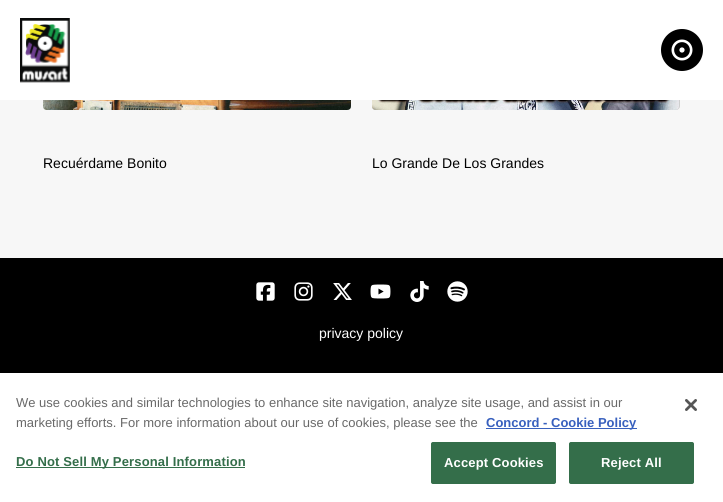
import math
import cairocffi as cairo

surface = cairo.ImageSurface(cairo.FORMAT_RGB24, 723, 502)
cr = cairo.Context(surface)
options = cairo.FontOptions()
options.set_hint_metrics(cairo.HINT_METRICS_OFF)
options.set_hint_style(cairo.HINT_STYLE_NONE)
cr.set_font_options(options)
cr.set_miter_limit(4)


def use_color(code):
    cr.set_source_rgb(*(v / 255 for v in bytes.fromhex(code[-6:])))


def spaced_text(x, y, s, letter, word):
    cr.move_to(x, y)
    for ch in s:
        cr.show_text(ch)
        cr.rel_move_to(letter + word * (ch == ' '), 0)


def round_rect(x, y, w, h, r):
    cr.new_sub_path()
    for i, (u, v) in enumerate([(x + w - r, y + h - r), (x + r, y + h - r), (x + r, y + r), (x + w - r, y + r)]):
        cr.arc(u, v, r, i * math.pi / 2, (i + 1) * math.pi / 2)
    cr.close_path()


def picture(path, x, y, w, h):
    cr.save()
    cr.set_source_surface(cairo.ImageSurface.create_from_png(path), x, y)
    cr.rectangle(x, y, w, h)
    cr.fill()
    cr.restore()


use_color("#f7f7f7")
cr.paint()
use_color("#cfcfcf")
round_rect(372, -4, 308, 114, 4)
cr.fill()
use_color("#ffffff")
cr.rectangle(0, 0, 723, 100)
cr.fill()
picture("img1.png", 20, 18, 50, 65)
picture("img2.png", 661, 29, 42, 42)
picture("img3.png", 43, 100, 308, 10)
cr.select_font_face("Liberation Sans")
cr.set_font_size(14)
use_color("#000000")
cr.move_to(43, 168)
cr.show_text("Recuérdame Bonito")
picture("img4.png", 372, 100, 307, 10)
cr.move_to(372, 168)
cr.show_text("Lo Grande De Los Grandes")
cr.rectangle(0, 258, 723, 115)
cr.fill()
picture("img5.png", 256, 282, 19, 19)
picture("img6.png", 294, 282, 19, 19)
picture("img7.png", 333, 283, 19, 17)
picture("img8.png", 370, 284, 21, 15)
picture("img9.png", 410, 281, 19, 21)
picture("img10.png", 447, 281, 21, 21)
use_color("#ffffff")
cr.move_to(319, 338)
cr.show_text("privacy policy")
cr.rectangle(0, 373, 723, 129)
cr.fill()
cr.set_font_size(13)
use_color("#696969")
cr.move_to(16, 407)
cr.show_text("We use cookies and similar technologies to enhance site navigation, analyze site usage, and assist in our")
cr.move_to(16, 427)
cr.show_text("marketing efforts. For more information about our use of cookies, please see the")
use_color("#3860be")
cr.rectangle(486, 428, 151, 1)
cr.fill()
cr.select_font_face("Liberation Sans", cairo.FONT_SLANT_NORMAL, cairo.FONT_WEIGHT_BOLD)
cr.move_to(486, 427)
cr.show_text("Concord - Cookie Policy")
use_color("#346e4a")
cr.rectangle(16, 467, 229, 1)
cr.fill()
spaced_text(16, 466, "Do Not Sell My Personal Information", 0.15, 0)
round_rect(431.5, 442.5, 124, 41, 1.5)
cr.fill_preserve()
cr.set_line_width(1)
cr.stroke()
use_color("#ffffff")
spaced_text(444, 467, "Accept Cookies", 0.15, 0)
use_color("#346e4a")
round_rect(569.5, 442.5, 124, 41, 1.5)
cr.fill_preserve()
cr.stroke()
use_color("#ffffff")
spaced_text(601, 467, "Reject All", 0.15, 0)
picture("img11.png", 685, 399, 12, 12)
surface.write_to_png("result.png")
